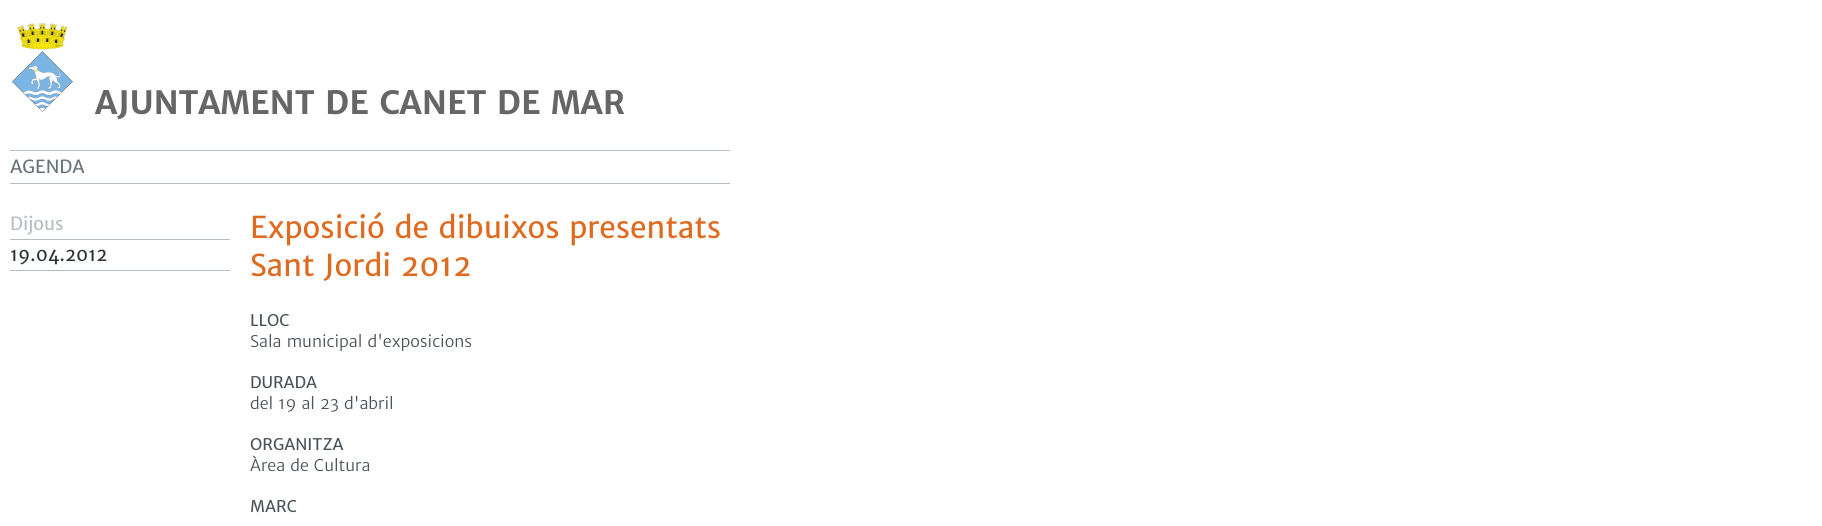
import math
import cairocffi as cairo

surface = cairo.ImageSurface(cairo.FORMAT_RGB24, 1822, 526)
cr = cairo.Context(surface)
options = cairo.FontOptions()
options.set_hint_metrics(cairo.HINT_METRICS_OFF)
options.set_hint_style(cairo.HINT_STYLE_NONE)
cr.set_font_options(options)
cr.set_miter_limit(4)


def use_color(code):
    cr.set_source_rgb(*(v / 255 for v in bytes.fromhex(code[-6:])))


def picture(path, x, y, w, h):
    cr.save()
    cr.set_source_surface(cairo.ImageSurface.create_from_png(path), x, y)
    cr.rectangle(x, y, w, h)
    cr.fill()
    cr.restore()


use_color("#ffffff")
cr.paint()
picture("img1.png", 12, 23, 61, 89)
cr.select_font_face("Merriweather Sans", cairo.FONT_SLANT_NORMAL, cairo.FONT_WEIGHT_BOLD)
cr.set_font_size(32)
use_color("#666666")
cr.move_to(95, 114)
cr.show_text("AJUNTAMENT DE CANET DE MAR")
use_color("#b6bdc3")
cr.rectangle(10, 150, 720, 1)
cr.fill()
cr.rectangle(10, 183, 720, 1)
cr.fill()
cr.select_font_face("Merriweather Sans")
cr.set_font_size(18)
use_color("#67747c")
cr.move_to(10, 173)
cr.show_text("AGENDA")
use_color("#b6bdc3")
cr.rectangle(10, 239, 220, 1)
cr.fill()
cr.move_to(10, 230)
cr.show_text("Dijous")
cr.rectangle(10, 270, 220, 1)
cr.fill()
use_color("#2e3336")
cr.move_to(10, 261)
cr.show_text("19.04.2012")
cr.set_font_size(30)
use_color("#de6b1f")
cr.move_to(250, 238)
cr.show_text("Exposició de dibuixos presentats")
cr.move_to(250, 276)
cr.show_text("Sant Jordi 2012")
cr.set_font_size(16)
use_color("#4a5359")
cr.move_to(250, 326)
cr.show_text("LLOC")
cr.select_font_face("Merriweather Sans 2")
cr.move_to(250, 347)
cr.show_text("Sala municipal d'exposicions")
cr.select_font_face("Merriweather Sans")
cr.move_to(250, 388)
cr.show_text("DURADA")
cr.select_font_face("Merriweather Sans 2")
cr.move_to(250, 409)
cr.show_text("del 19 al 23 d'abril")
cr.select_font_face("Merriweather Sans")
cr.move_to(250, 450)
cr.show_text("ORGANITZA")
cr.select_font_face("Merriweather Sans 2")
cr.move_to(250, 471)
cr.show_text("Àrea de Cultura")
cr.select_font_face("Merriweather Sans")
cr.move_to(250, 512)
cr.show_text("MARC")
surface.write_to_png("result.png")
